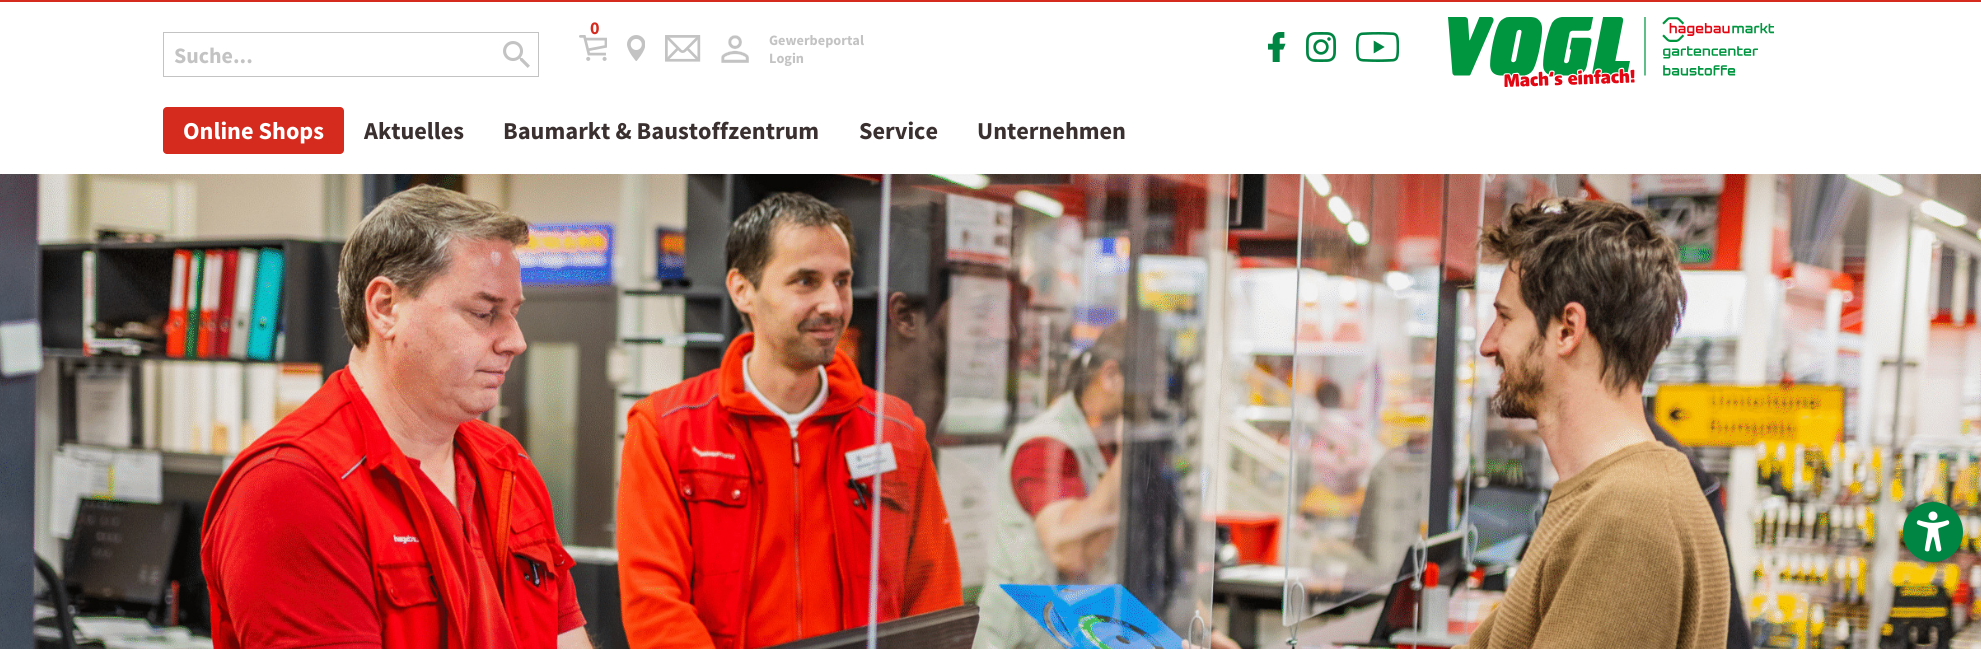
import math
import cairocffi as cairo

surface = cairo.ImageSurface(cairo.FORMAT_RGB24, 1981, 649)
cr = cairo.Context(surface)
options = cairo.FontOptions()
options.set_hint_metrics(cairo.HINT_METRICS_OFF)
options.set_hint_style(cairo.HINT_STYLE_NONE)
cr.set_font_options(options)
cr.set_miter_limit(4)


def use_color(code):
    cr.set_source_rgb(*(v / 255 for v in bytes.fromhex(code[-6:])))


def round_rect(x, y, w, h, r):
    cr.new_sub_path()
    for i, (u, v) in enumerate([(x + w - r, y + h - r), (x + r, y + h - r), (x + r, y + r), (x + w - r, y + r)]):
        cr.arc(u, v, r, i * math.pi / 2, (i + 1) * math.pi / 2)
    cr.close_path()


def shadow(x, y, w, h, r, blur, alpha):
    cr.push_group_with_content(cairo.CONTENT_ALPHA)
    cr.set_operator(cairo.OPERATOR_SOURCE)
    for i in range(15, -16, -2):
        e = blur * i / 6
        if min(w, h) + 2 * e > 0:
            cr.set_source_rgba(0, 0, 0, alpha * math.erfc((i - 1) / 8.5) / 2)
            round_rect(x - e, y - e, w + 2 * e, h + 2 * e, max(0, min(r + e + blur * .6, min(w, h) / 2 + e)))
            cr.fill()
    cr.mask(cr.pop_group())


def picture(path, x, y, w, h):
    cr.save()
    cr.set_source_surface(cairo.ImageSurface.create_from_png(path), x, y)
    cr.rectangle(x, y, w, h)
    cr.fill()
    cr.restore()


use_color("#ffffff")
cr.paint()
use_color("#d52b1e")
cr.rectangle(0, 0, 1981, 2)
cr.fill()
cr.rectangle(163.5, 32.5, 375, 44)
use_color("#c2c3c2")
cr.set_line_width(1)
cr.stroke()
cr.select_font_face("Source Sans Pro", cairo.FONT_SLANT_NORMAL, cairo.FONT_WEIGHT_BOLD)
cr.set_font_size(22)
cr.move_to(174, 63)
cr.show_text("Suche...")
picture("img1.png", 503, 41, 27, 27)
cr.set_font_size(18)
use_color("#d52b1e")
cr.move_to(590, 34)
cr.show_text("0")
picture("img2.png", 579, 35, 28, 26)
picture("img3.png", 627, 35, 18, 26)
picture("img4.png", 665, 35, 36, 27)
picture("img5.png", 721, 35, 28, 28)
cr.set_font_size(14.25)
use_color("#c2c3c2")
cr.move_to(769, 45)
cr.show_text("Gewerbeportal")
cr.move_to(769, 63)
cr.show_text("Login")
picture("img6.png", 1268, 32, 18, 30)
picture("img7.png", 1306, 32, 30, 30)
picture("img8.png", 1356, 32, 43, 30)
picture("img9.png", 1448, 17, 326, 70)
use_color("#d52b1e")
round_rect(163, 107, 181, 47, 4)
cr.fill()
cr.set_font_size(24.25)
use_color("#ffffff")
cr.move_to(183, 139)
cr.show_text("Online Shops")
use_color("#3b3030")
cr.move_to(364, 139)
cr.show_text("Aktuelles")
cr.move_to(503, 139)
cr.show_text("Baumarkt & Baustoffzentrum")
cr.move_to(859, 139)
cr.show_text("Service")
cr.move_to(977, 139)
cr.show_text("Unternehmen")
picture("img10.png", 0, 174, 1981, 475)
use_color("#000000")
shadow(1903, 507, 60, 60, 30, 2, 0.26)
use_color("#008542")
cr.arc(1933, 532, 30, 0, 2 * math.pi)
cr.fill()
picture("img11.png", 1916, 511, 34, 41)
surface.write_to_png("result.png")
